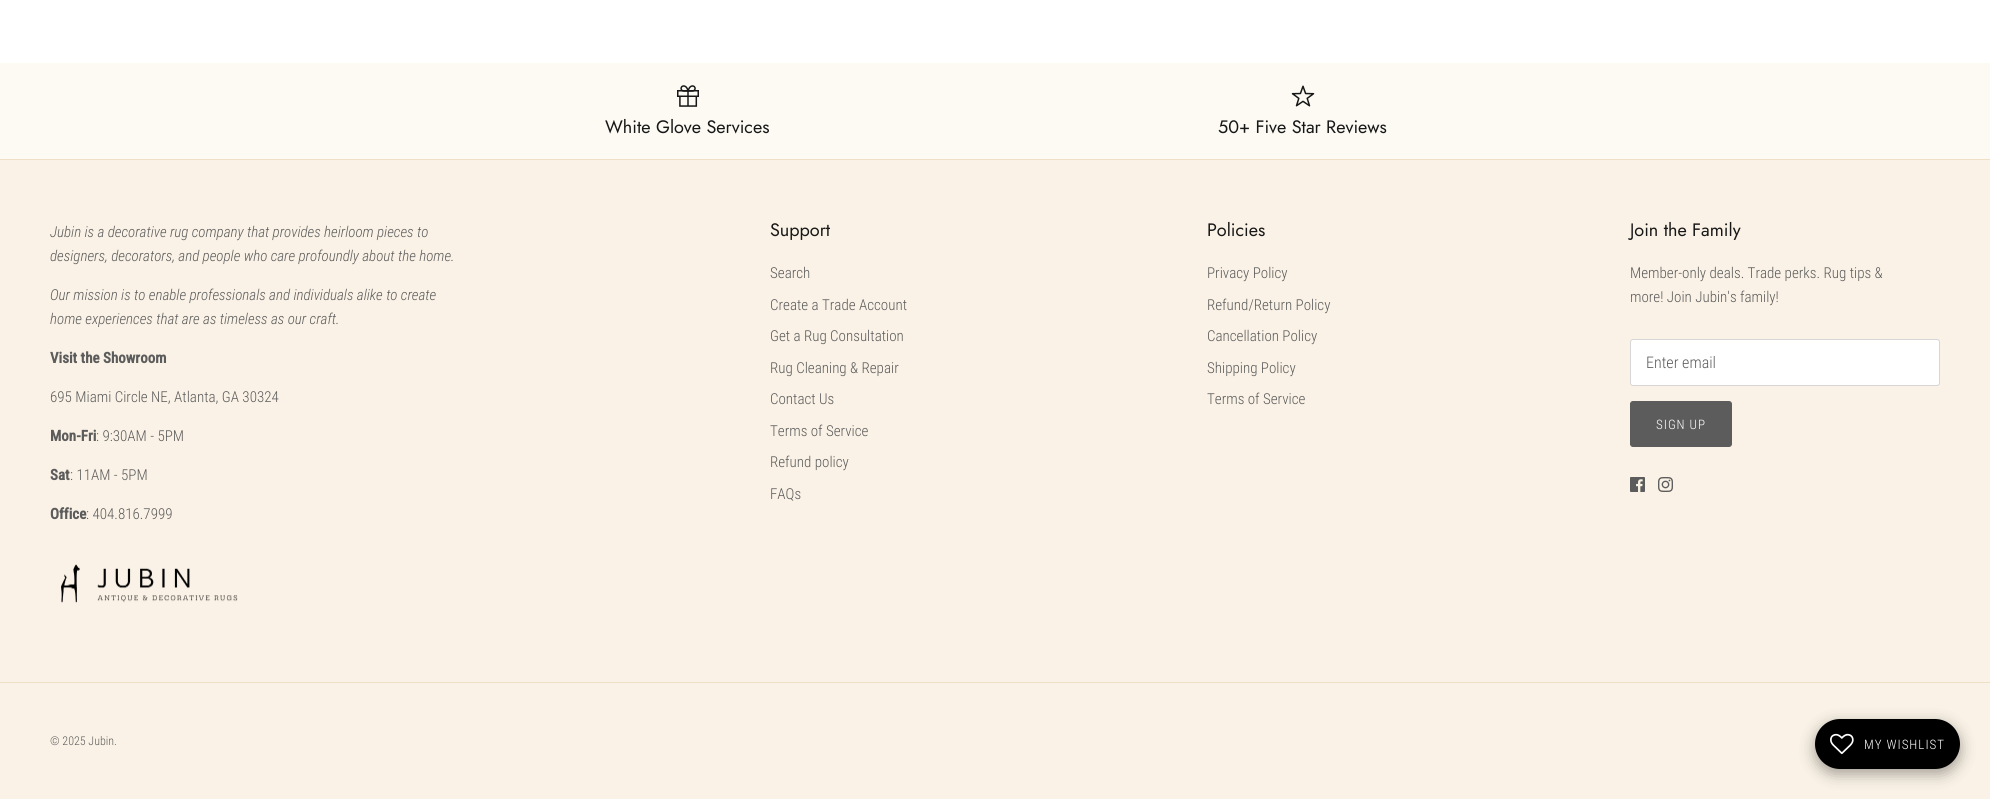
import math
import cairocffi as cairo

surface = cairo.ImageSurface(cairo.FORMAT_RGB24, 1990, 799)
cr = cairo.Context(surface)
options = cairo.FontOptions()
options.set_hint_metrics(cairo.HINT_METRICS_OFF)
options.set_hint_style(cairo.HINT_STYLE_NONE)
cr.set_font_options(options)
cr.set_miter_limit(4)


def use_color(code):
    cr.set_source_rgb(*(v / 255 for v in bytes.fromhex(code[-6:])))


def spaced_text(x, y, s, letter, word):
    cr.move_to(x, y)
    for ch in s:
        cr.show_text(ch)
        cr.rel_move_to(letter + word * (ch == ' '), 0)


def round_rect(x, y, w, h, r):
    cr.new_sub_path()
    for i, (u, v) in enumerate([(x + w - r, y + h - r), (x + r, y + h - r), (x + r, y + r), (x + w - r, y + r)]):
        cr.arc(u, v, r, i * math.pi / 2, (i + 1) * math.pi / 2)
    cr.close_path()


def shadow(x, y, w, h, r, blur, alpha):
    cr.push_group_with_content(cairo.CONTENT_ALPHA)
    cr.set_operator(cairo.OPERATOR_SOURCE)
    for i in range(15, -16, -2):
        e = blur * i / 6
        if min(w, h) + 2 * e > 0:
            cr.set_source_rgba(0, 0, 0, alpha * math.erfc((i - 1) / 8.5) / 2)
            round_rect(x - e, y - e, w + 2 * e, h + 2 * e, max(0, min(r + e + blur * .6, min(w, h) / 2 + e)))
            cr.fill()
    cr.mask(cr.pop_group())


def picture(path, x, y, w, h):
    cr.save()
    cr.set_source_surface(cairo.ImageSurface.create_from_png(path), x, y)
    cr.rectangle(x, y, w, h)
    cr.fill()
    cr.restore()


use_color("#ffffff")
cr.paint()
use_color("#faf2e6")
cr.rectangle(0, 160, 1990, 639)
cr.fill()
use_color("#fcfaf3")
cr.rectangle(0, 63, 1990, 96)
cr.fill()
picture("img1.png", 677, 85, 22, 22)
cr.select_font_face("Jost")
cr.set_font_size(18)
use_color("#171717")
cr.move_to(605, 133)
cr.show_text("White Glove Services")
picture("img2.png", 1291, 85, 24, 22)
cr.move_to(1218, 133)
cr.show_text("50+ Five Star Reviews")
use_color("#efdfc7")
cr.rectangle(0, 159, 1990, 1)
cr.fill()
cr.select_font_face("Roboto Condensed Light", cairo.FONT_SLANT_ITALIC)
cr.set_font_size(15)
use_color("#5c5c5c")
cr.move_to(50, 237)
cr.show_text("Jubin is a decorative rug company that provides heirloom pieces to")
cr.move_to(50, 261)
cr.show_text("designers, decorators, and people who care profoundly about the home.")
cr.move_to(50, 300)
cr.show_text("Our mission is to enable professionals and individuals alike to create")
cr.move_to(50, 324)
cr.show_text("home experiences that are as timeless as our craft.")
cr.select_font_face("Roboto Condensed", cairo.FONT_SLANT_NORMAL, cairo.FONT_WEIGHT_BOLD)
cr.move_to(50, 363)
cr.show_text("Visit the Showroom")
cr.select_font_face("Roboto Condensed Light")
cr.move_to(50, 402)
cr.show_text("695 Miami Circle NE, Atlanta, GA 30324")
cr.select_font_face("Roboto Condensed", cairo.FONT_SLANT_NORMAL, cairo.FONT_WEIGHT_BOLD)
cr.move_to(50, 441)
cr.show_text("Mon-Fri")
cr.select_font_face("Roboto Condensed Light")
cr.move_to(96, 441)
cr.show_text(": 9:30AM - 5PM")
cr.select_font_face("Roboto Condensed", cairo.FONT_SLANT_NORMAL, cairo.FONT_WEIGHT_BOLD)
cr.move_to(50, 480)
cr.show_text("Sat")
cr.select_font_face("Roboto Condensed Light")
cr.move_to(70, 480)
cr.show_text(": 11AM - 5PM")
cr.select_font_face("Roboto Condensed", cairo.FONT_SLANT_NORMAL, cairo.FONT_WEIGHT_BOLD)
cr.move_to(50, 519)
cr.show_text("Office")
cr.select_font_face("Roboto Condensed Light")
cr.move_to(86, 519)
cr.show_text(": 404.816.7999")
picture("img3.png", 61, 564, 177, 39)
cr.select_font_face("Jost")
cr.set_font_size(18)
use_color("#171717")
cr.move_to(770, 236)
cr.show_text("Support")
cr.select_font_face("Roboto Condensed Light")
cr.set_font_size(15)
use_color("#5c5c5c")
cr.move_to(770, 278)
cr.show_text("Search")
cr.move_to(770, 310)
cr.show_text("Create a Trade Account")
cr.move_to(770, 341)
cr.show_text("Get a Rug Consultation")
cr.move_to(770, 373)
cr.show_text("Rug Cleaning & Repair")
cr.move_to(770, 404)
cr.show_text("Contact Us")
cr.move_to(770, 436)
cr.show_text("Terms of Service")
cr.move_to(770, 467)
cr.show_text("Refund policy")
cr.move_to(770, 499)
cr.show_text("FAQs")
cr.select_font_face("Jost")
cr.set_font_size(18)
use_color("#171717")
cr.move_to(1207, 236)
cr.show_text("Policies")
cr.select_font_face("Roboto Condensed Light")
cr.set_font_size(15)
use_color("#5c5c5c")
cr.move_to(1207, 278)
cr.show_text("Privacy Policy")
cr.move_to(1207, 310)
cr.show_text("Refund/Return Policy")
cr.move_to(1207, 341)
cr.show_text("Cancellation Policy")
cr.move_to(1207, 373)
cr.show_text("Shipping Policy")
cr.move_to(1207, 404)
cr.show_text("Terms of Service")
cr.select_font_face("Jost")
cr.set_font_size(18)
use_color("#171717")
cr.move_to(1630, 236)
cr.show_text("Join the Family")
cr.select_font_face("Roboto Condensed Light")
cr.set_font_size(15)
use_color("#5c5c5c")
cr.move_to(1630, 278)
cr.show_text("Member-only deals. Trade perks. Rug tips &")
cr.move_to(1630, 302)
cr.show_text("more! Join Jubin's family!")
use_color("#ffffff")
round_rect(1630.5, 339.5, 309, 46, 2.5)
cr.fill_preserve()
use_color("#d6d6d6")
cr.set_line_width(1)
cr.stroke()
cr.set_font_size(16)
use_color("#5c5c5c")
cr.move_to(1646, 368)
cr.show_text("Enter email")
round_rect(1630.5, 401.5, 101, 45, 2.5)
cr.fill_preserve()
cr.stroke()
cr.set_font_size(13)
use_color("#ffffff")
spaced_text(1656, 429, "SIGN UP", 1, 0)
picture("img4.png", 1630, 477, 15, 15)
picture("img5.png", 1658, 477, 15, 15)
use_color("#efdfc7")
cr.rectangle(0, 682, 1990, 1)
cr.fill()
cr.set_font_size(12)
use_color("#5c5c5c")
cr.move_to(50, 745)
cr.show_text("© 2025 Jubin.")
use_color("#000000")
shadow(1815, 724, 145, 50, 25, 7.5, 0.35)
use_color("#000000")
round_rect(1815, 719, 145, 50, 25)
cr.fill()
picture("img6.png", 1830, 733, 24, 22)
cr.set_font_size(13)
use_color("#ffffff")
spaced_text(1864, 749, "MY WISHLIST", 1, 0)
surface.write_to_png("result.png")
